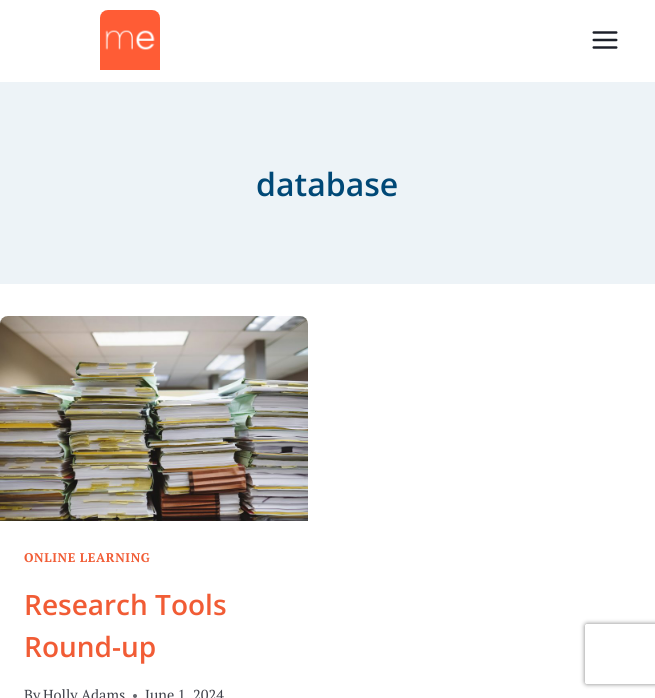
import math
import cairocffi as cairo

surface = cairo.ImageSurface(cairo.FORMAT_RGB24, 655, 698)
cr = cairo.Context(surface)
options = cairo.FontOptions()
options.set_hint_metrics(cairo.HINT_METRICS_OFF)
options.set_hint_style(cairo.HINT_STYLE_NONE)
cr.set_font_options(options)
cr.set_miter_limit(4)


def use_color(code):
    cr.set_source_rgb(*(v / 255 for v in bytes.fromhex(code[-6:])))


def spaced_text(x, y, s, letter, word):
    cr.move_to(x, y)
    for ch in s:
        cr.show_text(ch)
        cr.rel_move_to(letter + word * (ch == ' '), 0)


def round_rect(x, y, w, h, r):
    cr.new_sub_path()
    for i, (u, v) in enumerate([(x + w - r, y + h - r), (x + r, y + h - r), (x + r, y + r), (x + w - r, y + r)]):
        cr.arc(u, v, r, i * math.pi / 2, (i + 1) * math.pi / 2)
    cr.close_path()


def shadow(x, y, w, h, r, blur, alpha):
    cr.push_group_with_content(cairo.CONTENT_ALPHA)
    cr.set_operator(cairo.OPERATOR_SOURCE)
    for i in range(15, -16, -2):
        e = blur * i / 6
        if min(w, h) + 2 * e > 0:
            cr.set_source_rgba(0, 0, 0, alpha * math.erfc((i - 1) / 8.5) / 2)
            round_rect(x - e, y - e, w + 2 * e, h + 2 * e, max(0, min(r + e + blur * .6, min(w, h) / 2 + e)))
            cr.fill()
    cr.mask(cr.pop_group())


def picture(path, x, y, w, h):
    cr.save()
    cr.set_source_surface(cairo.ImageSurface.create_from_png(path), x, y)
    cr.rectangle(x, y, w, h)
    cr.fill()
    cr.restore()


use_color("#ffffff")
cr.paint()
picture("img1.png", 100, 10, 60, 60)
picture("img2.png", 592, 31, 26, 18)
use_color("#edf3f7")
cr.rectangle(0, 82, 655, 202)
cr.fill()
cr.select_font_face("Open Sans SemiBold")
cr.set_font_size(32)
use_color("#004876")
cr.move_to(256, 196)
cr.show_text("database")
picture("img3.png", 0, 316, 308, 205)
cr.select_font_face("PT Serif", cairo.FONT_SLANT_NORMAL, cairo.FONT_WEIGHT_BOLD)
cr.set_font_size(12.6)
use_color("#f15c35")
spaced_text(24, 562, "ONLINE LEARNING", 0.6, 0)
cr.select_font_face("Open Sans SemiBold")
cr.set_font_size(28)
cr.move_to(24, 615)
cr.show_text("Research Tools")
cr.move_to(24, 657)
cr.show_text("Round-up")
cr.select_font_face("PT Serif")
cr.set_font_size(14.5)
use_color("#3e4149")
cr.move_to(24, 700)
cr.show_text("By")
cr.move_to(43, 700)
cr.show_text("Holly Adams")
use_color("#64686e")
cr.new_path()
cr.arc(135, 696, 2, 0, 2 * math.pi)
cr.fill()
use_color("#3e4149")
cr.move_to(145, 700)
cr.show_text("June 1, 2024")
cr.save()
cr.set_fill_rule(cairo.FILL_RULE_EVEN_ODD)
cr.new_path()
cr.move_to(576, 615)
cr.line_to(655, 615)
cr.line_to(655, 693)
cr.line_to(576, 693)
cr.close_path()
cr.move_to(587, 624)
cr.line_to(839, 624)
cr.curve_to(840, 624, 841, 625, 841, 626)
cr.line_to(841, 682)
cr.curve_to(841, 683, 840, 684, 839, 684)
cr.line_to(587, 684)
cr.curve_to(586, 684, 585, 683, 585, 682)
cr.line_to(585, 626)
cr.curve_to(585, 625, 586, 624, 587, 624)
cr.close_path()
cr.clip()
use_color("#808080")
shadow(585, 624, 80, 60, 2, 2.5, 1)
cr.restore()
surface.write_to_png("result.png")
